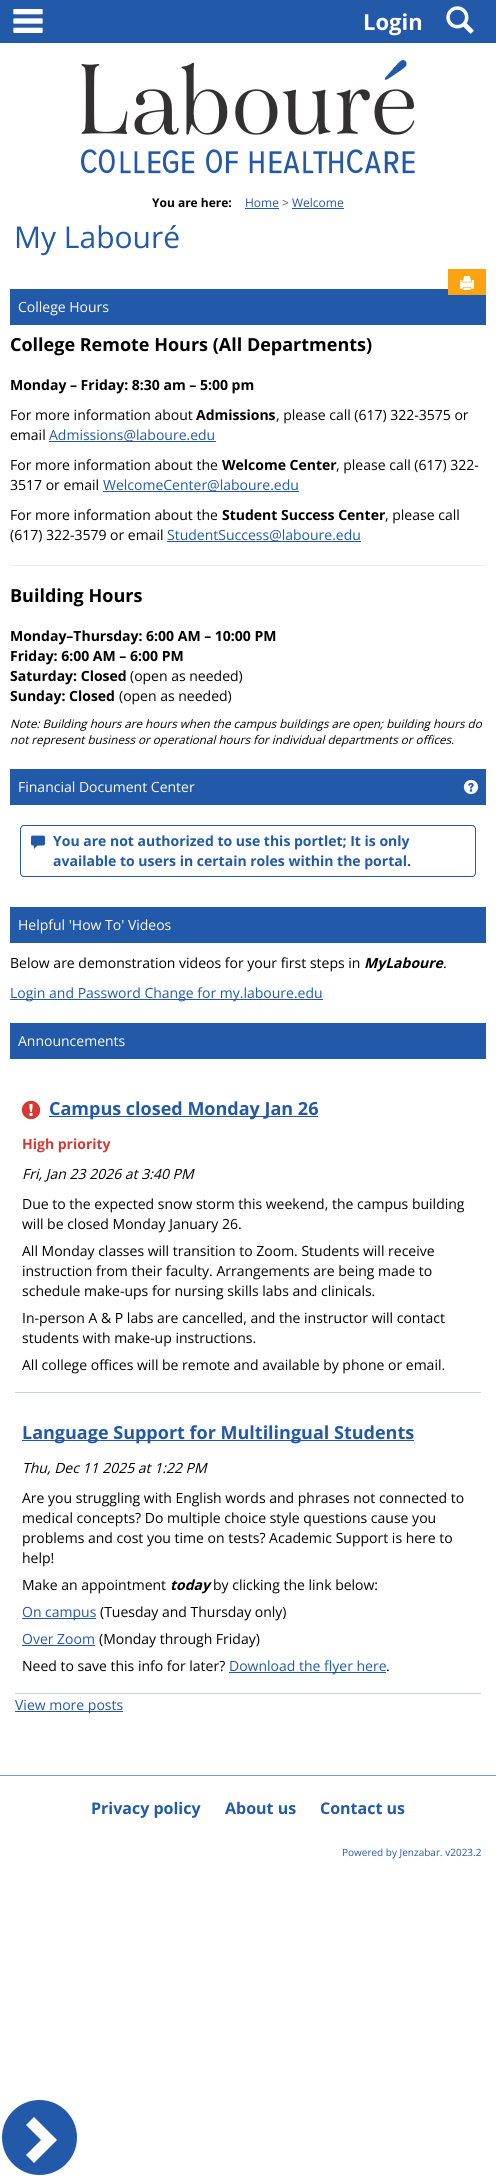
import math
import cairocffi as cairo

surface = cairo.ImageSurface(cairo.FORMAT_RGB24, 496, 2176)
cr = cairo.Context(surface)
options = cairo.FontOptions()
options.set_hint_metrics(cairo.HINT_METRICS_OFF)
options.set_hint_style(cairo.HINT_STYLE_NONE)
cr.set_font_options(options)
cr.set_miter_limit(4)


def use_color(code):
    cr.set_source_rgb(*(v / 255 for v in bytes.fromhex(code[-6:])))


def round_rect(x, y, w, h, r):
    cr.new_sub_path()
    for i, (u, v) in enumerate([(x + w - r, y + h - r), (x + r, y + h - r), (x + r, y + r), (x + w - r, y + r)]):
        cr.arc(u, v, r, i * math.pi / 2, (i + 1) * math.pi / 2)
    cr.close_path()


def picture(path, x, y, w, h):
    cr.save()
    cr.set_source_surface(cairo.ImageSurface.create_from_png(path), x, y)
    cr.rectangle(x, y, w, h)
    cr.fill()
    cr.restore()


use_color("#ffffff")
cr.paint()
use_color("#2259a9")
cr.rectangle(0, 0, 496, 43)
cr.fill()
picture("img1.png", 13, 9, 30, 24)
cr.select_font_face("Open Sans", cairo.FONT_SLANT_NORMAL, cairo.FONT_WEIGHT_BOLD)
cr.set_font_size(22)
use_color("#ffffff")
cr.move_to(363, 30)
cr.show_text("Login")
picture("img2.png", 446, 6, 28, 28)
picture("img3.png", 81, 60, 334, 114)
cr.set_font_size(12)
use_color("#000000")
cr.move_to(152, 207)
cr.show_text("You are here:")
cr.select_font_face("Open Sans")
use_color("#2259a9")
cr.move_to(245, 207)
cr.show_text("Home > Welcome")
cr.rectangle(245, 208, 34, 1)
cr.fill()
cr.rectangle(292, 208, 52, 1)
cr.fill()
cr.set_font_size(30)
cr.move_to(14, 248)
cr.show_text("My Labouré")
cr.rectangle(10, 289, 476, 36)
cr.fill()
use_color("#fca311")
cr.rectangle(448, 269, 38, 26)
cr.fill()
picture("img4.png", 460, 276, 14, 14)
cr.set_font_size(14)
use_color("#ffffff")
cr.move_to(18, 312)
cr.show_text("College Hours")
cr.select_font_face("Open Sans", cairo.FONT_SLANT_NORMAL, cairo.FONT_WEIGHT_BOLD)
cr.set_font_size(18)
use_color("#000000")
cr.move_to(10, 351)
cr.show_text("College Remote Hours (All Departments)")
cr.set_font_size(14)
cr.move_to(10, 390)
cr.show_text("Monday – Friday: 8:30 am – 5:00 pm")
cr.select_font_face("Open Sans")
cr.move_to(10, 420)
cr.show_text("For more information about")
cr.select_font_face("Open Sans", cairo.FONT_SLANT_NORMAL, cairo.FONT_WEIGHT_BOLD)
cr.move_to(196, 420)
cr.show_text("Admissions")
cr.select_font_face("Open Sans")
cr.move_to(276, 420)
cr.show_text(", please call (617) 322-3575 or")
cr.move_to(10, 440)
cr.show_text("email")
use_color("#2259a9")
cr.rectangle(49, 441, 167, 1)
cr.fill()
cr.move_to(49, 440)
cr.show_text("Admissions@laboure.edu")
use_color("#000000")
cr.move_to(10, 470)
cr.show_text("For more information about the")
cr.select_font_face("Open Sans", cairo.FONT_SLANT_NORMAL, cairo.FONT_WEIGHT_BOLD)
cr.move_to(222, 470)
cr.show_text("Welcome Center")
cr.select_font_face("Open Sans")
cr.move_to(336, 470)
cr.show_text(", please call (617) 322-")
cr.move_to(10, 490)
cr.show_text("3517 or email")
use_color("#2259a9")
cr.rectangle(103, 491, 196, 1)
cr.fill()
cr.move_to(103, 490)
cr.show_text("WelcomeCenter@laboure.edu")
use_color("#000000")
cr.move_to(10, 520)
cr.show_text("For more information about the")
cr.select_font_face("Open Sans", cairo.FONT_SLANT_NORMAL, cairo.FONT_WEIGHT_BOLD)
cr.move_to(222, 520)
cr.show_text("Student Success Center")
cr.select_font_face("Open Sans")
cr.move_to(385, 520)
cr.show_text(", please call")
cr.move_to(10, 540)
cr.show_text("(617) 322-3579 or email")
use_color("#2259a9")
cr.rectangle(167, 541, 194, 1)
cr.fill()
cr.move_to(167, 540)
cr.show_text("StudentSuccess@laboure.edu")
use_color("#eeeeee")
cr.rectangle(10, 565, 476, 1)
cr.fill()
cr.select_font_face("Open Sans", cairo.FONT_SLANT_NORMAL, cairo.FONT_WEIGHT_BOLD)
cr.set_font_size(18)
use_color("#000000")
cr.move_to(10, 602)
cr.show_text("Building Hours")
cr.set_font_size(14)
cr.move_to(10, 641)
cr.show_text("Monday–Thursday: 6:00 AM – 10:00 PM")
cr.move_to(10, 661)
cr.show_text("Friday: 6:00 AM – 6:00 PM")
cr.move_to(10, 681)
cr.show_text("Saturday: Closed")
cr.select_font_face("Open Sans")
cr.move_to(130, 681)
cr.show_text("(open as needed)")
cr.select_font_face("Open Sans", cairo.FONT_SLANT_NORMAL, cairo.FONT_WEIGHT_BOLD)
cr.move_to(10, 701)
cr.show_text("Sunday: Closed")
cr.select_font_face("Open Sans")
cr.move_to(119, 701)
cr.show_text("(open as needed)")
cr.select_font_face("Open Sans", cairo.FONT_SLANT_ITALIC)
cr.set_font_size(11.65)
cr.move_to(10, 728)
cr.show_text("Note: Building hours are hours when the campus buildings are open; building hours do")
cr.move_to(10, 744)
cr.show_text("not represent business or operational hours for individual departments or offices.")
use_color("#2259a9")
cr.rectangle(10, 769, 476, 36)
cr.fill()
cr.select_font_face("Open Sans")
cr.set_font_size(14)
use_color("#ffffff")
cr.move_to(18, 792)
cr.show_text("Financial Document Center")
picture("img5.png", 463, 779, 16, 16)
round_rect(20.5, 825.5, 455, 51, 3.5)
use_color("#2259a9")
cr.set_line_width(1)
cr.stroke()
picture("img6.png", 31, 835, 14, 14)
cr.select_font_face("Open Sans", cairo.FONT_SLANT_NORMAL, cairo.FONT_WEIGHT_BOLD)
cr.move_to(53, 846)
cr.show_text("You are not authorized to use this portlet; It is only")
cr.move_to(53, 866)
cr.show_text("available to users in certain roles within the portal.")
cr.rectangle(10, 907, 476, 36)
cr.fill()
cr.select_font_face("Open Sans")
use_color("#ffffff")
cr.move_to(18, 930)
cr.show_text("Helpful 'How To' Videos")
use_color("#000000")
cr.move_to(10, 968)
cr.show_text("Below are demonstration videos for your first steps in")
cr.select_font_face("Open Sans", cairo.FONT_SLANT_ITALIC, cairo.FONT_WEIGHT_BOLD)
cr.move_to(364, 968)
cr.show_text("MyLaboure")
cr.select_font_face("Open Sans")
cr.move_to(443, 968)
cr.show_text(".")
use_color("#2259a9")
cr.rectangle(10, 999, 313, 1)
cr.fill()
cr.move_to(10, 998)
cr.show_text("Login and Password Change for my.laboure.edu")
cr.rectangle(10, 1023, 476, 36)
cr.fill()
use_color("#ffffff")
cr.move_to(18, 1046)
cr.show_text("Announcements")
use_color("#c2d2ea")
cr.rectangle(15, 1392, 466, 1)
cr.fill()
picture("img7.png", 21, 1100, 20, 20)
use_color("#2259a9")
cr.rectangle(49, 1116, 269, 1)
cr.fill()
cr.select_font_face("Open Sans", cairo.FONT_SLANT_NORMAL, cairo.FONT_WEIGHT_BOLD)
cr.set_font_size(18)
cr.move_to(49, 1115)
cr.show_text("Campus closed Monday Jan 26")
cr.set_font_size(14)
use_color("#d33a35")
cr.move_to(22, 1149)
cr.show_text("High priority")
cr.select_font_face("Open Sans", cairo.FONT_SLANT_ITALIC)
use_color("#000000")
cr.move_to(22, 1179)
cr.show_text("Fri, Jan 23 2026 at 3:40 PM")
cr.select_font_face("Open Sans")
cr.move_to(22, 1209)
cr.show_text("Due to the expected snow storm this weekend, the campus building")
cr.move_to(22, 1229)
cr.show_text("will be closed Monday January 26.")
cr.move_to(22, 1256)
cr.show_text("All Monday classes will transition to Zoom. Students will receive")
cr.move_to(22, 1276)
cr.show_text("instruction from their faculty. Arrangements are being made to")
cr.move_to(22, 1296)
cr.show_text("schedule make-ups for nursing skills labs and clinicals.")
cr.move_to(22, 1323)
cr.show_text("In-person A & P labs are cancelled, and the instructor will contact")
cr.move_to(22, 1343)
cr.show_text("students with make-up instructions.")
cr.move_to(22, 1370)
cr.show_text("All college offices will be remote and available by phone or email.")
use_color("#c2d2ea")
cr.rectangle(15, 1693, 466, 1)
cr.fill()
use_color("#2259a9")
cr.rectangle(22, 1440, 392, 1)
cr.fill()
cr.select_font_face("Open Sans", cairo.FONT_SLANT_NORMAL, cairo.FONT_WEIGHT_BOLD)
cr.set_font_size(18)
cr.move_to(22, 1439)
cr.show_text("Language Support for Multilingual Students")
cr.select_font_face("Open Sans", cairo.FONT_SLANT_ITALIC)
cr.set_font_size(14)
use_color("#000000")
cr.move_to(22, 1473)
cr.show_text("Thu, Dec 11 2025 at 1:22 PM")
cr.select_font_face("Open Sans")
cr.move_to(22, 1503)
cr.show_text("Are you struggling with English words and phrases not connected to")
cr.move_to(22, 1523)
cr.show_text("medical concepts? Do multiple choice style questions cause you")
cr.move_to(22, 1543)
cr.show_text("problems and cost you time on tests? Academic Support is here to")
cr.move_to(22, 1563)
cr.show_text("help!")
cr.move_to(22, 1590)
cr.show_text("Make an appointment")
cr.select_font_face("Open Sans", cairo.FONT_SLANT_ITALIC, cairo.FONT_WEIGHT_BOLD)
cr.move_to(170, 1590)
cr.show_text("today")
cr.select_font_face("Open Sans")
cr.move_to(213, 1590)
cr.show_text("by clicking the link below:")
use_color("#2259a9")
cr.rectangle(22, 1618, 74, 1)
cr.fill()
cr.move_to(22, 1617)
cr.show_text("On campus")
use_color("#000000")
cr.move_to(100, 1617)
cr.show_text("(Tuesday and Thursday only)")
use_color("#2259a9")
cr.move_to(22, 1644)
cr.show_text("Over Zoom")
cr.rectangle(22, 1645, 73, 1)
cr.fill()
use_color("#000000")
cr.move_to(99, 1644)
cr.show_text("(Monday through Friday)")
cr.move_to(22, 1671)
cr.show_text("Need to save this info for later?")
use_color("#2259a9")
cr.rectangle(229, 1672, 157, 1)
cr.fill()
cr.move_to(229, 1671)
cr.show_text("Download the flyer here")
use_color("#000000")
cr.move_to(386, 1671)
cr.show_text(".")
use_color("#2259a9")
cr.rectangle(15, 1711, 108, 1)
cr.fill()
cr.move_to(15, 1710)
cr.show_text("View more posts")
cr.new_path()
cr.arc(39.5, 2137.5, 37.5, 0, 2 * math.pi)
cr.fill()
use_color("#ffffff")
cr.new_path()
cr.move_to(34, 2163)
cr.line_to(26, 2155)
cr.line_to(41, 2140)
cr.line_to(26, 2125)
cr.line_to(34, 2117)
cr.line_to(57, 2140)
cr.close_path()
cr.fill()
use_color("#769ad0")
cr.rectangle(0, 1775, 496, 1)
cr.fill()
cr.select_font_face("Open Sans", cairo.FONT_SLANT_NORMAL, cairo.FONT_WEIGHT_BOLD)
cr.set_font_size(16)
use_color("#2259a9")
cr.move_to(91, 1814)
cr.show_text("Privacy policy")
cr.move_to(225, 1814)
cr.show_text("About us")
cr.move_to(320, 1814)
cr.show_text("Contact us")
cr.select_font_face("Open Sans")
cr.set_font_size(10)
cr.move_to(342, 1856)
cr.show_text("Powered by Jenzabar. v2023.2")
surface.write_to_png("result.png")
